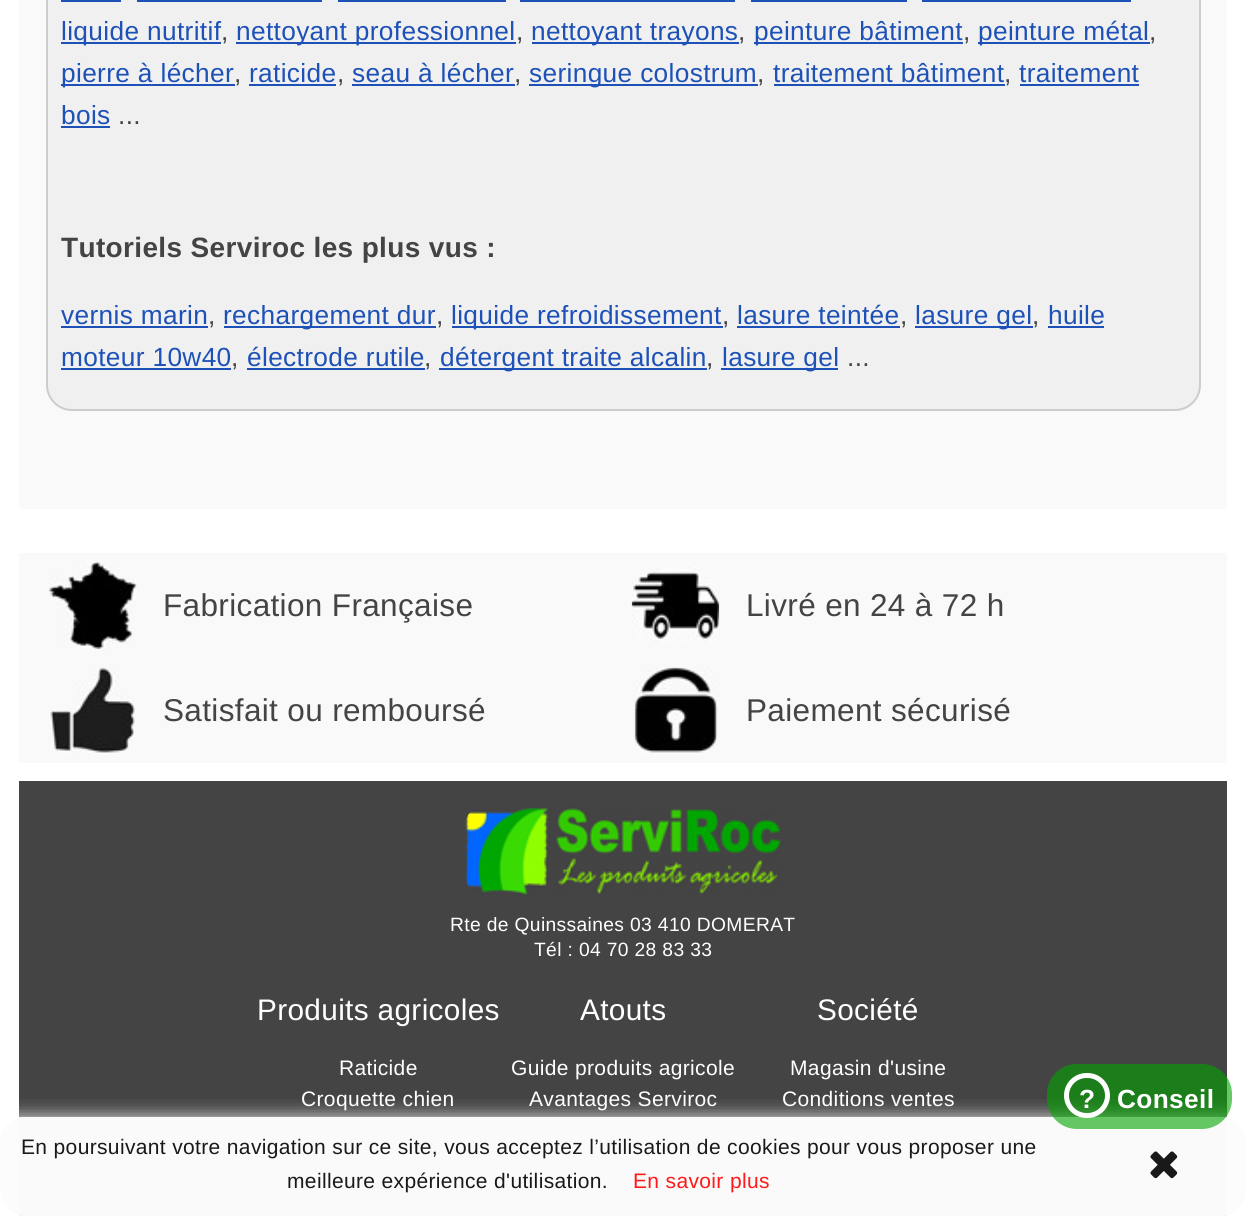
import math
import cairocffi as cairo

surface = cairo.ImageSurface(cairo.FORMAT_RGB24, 1246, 1216)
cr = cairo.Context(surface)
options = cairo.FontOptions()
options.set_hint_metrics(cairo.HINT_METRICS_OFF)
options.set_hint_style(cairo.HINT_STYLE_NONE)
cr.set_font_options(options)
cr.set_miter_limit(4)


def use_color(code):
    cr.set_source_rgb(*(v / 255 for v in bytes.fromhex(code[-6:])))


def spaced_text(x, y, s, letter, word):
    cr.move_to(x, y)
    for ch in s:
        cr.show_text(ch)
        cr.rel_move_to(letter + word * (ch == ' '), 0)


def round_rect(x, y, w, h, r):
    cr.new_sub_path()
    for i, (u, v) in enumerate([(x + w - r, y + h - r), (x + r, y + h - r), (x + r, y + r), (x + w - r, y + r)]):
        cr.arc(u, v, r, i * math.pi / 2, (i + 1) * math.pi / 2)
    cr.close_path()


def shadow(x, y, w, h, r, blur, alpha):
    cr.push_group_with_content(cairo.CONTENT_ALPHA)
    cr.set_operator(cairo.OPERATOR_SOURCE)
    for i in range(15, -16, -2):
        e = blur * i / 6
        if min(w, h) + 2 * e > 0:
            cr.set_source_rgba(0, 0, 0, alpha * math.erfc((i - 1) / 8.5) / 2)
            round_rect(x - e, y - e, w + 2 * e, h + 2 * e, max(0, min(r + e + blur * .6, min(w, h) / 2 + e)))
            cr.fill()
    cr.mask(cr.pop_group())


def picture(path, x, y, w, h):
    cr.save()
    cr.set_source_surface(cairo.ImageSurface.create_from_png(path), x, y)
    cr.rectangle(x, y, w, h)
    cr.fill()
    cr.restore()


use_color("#ffffff")
cr.paint()
use_color("#f9f9f9")
round_rect(19, -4, 1208, 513, 4)
cr.fill()
use_color("#f0f0f0")
round_rect(47, -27, 1153, 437, 25)
cr.fill_preserve()
use_color("#cccccc")
cr.stroke()
use_color("#1d51b7")
cr.rectangle(61, 0, 60, 2)
cr.fill()
cr.rectangle(137, 0, 185, 2)
cr.fill()
cr.rectangle(338, 0, 168, 2)
cr.fill()
cr.rectangle(520, 0, 215, 2)
cr.fill()
cr.rectangle(751, 0, 156, 2)
cr.fill()
cr.rectangle(922, 0, 209, 2)
cr.fill()
cr.rectangle(61, 42, 160, 2)
cr.fill()
cr.select_font_face("Liberation Sans")
cr.set_font_size(26.25)
spaced_text(61, 40, "liquide nutritif", 0.35, 0)
use_color("#444444")
spaced_text(221, 40, ",", 0.35, 0)
use_color("#1d51b7")
cr.rectangle(236, 42, 280, 2)
cr.fill()
spaced_text(236, 40, "nettoyant professionnel", 0.35, 0)
use_color("#444444")
spaced_text(516, 40, ",", 0.35, 0)
use_color("#1d51b7")
cr.rectangle(532, 42, 207, 2)
cr.fill()
spaced_text(531, 40, "nettoyant trayons", 0.35, 0)
use_color("#444444")
spaced_text(738, 40, ",", 0.35, 0)
use_color("#1d51b7")
cr.rectangle(754, 42, 209, 2)
cr.fill()
spaced_text(754, 40, "peinture bâtiment", 0.35, 0)
use_color("#444444")
spaced_text(963, 40, ",", 0.35, 0)
use_color("#1d51b7")
cr.rectangle(978, 42, 172, 2)
cr.fill()
spaced_text(978, 40, "peinture métal", 0.35, 0)
use_color("#444444")
spaced_text(1149, 40, ",", 0.35, 0)
use_color("#1d51b7")
cr.rectangle(61, 84, 174, 2)
cr.fill()
spaced_text(61, 82, "pierre à lécher", 0.35, 0)
use_color("#444444")
spaced_text(234, 82, ",", 0.35, 0)
use_color("#1d51b7")
spaced_text(249, 82, "raticide", 0.35, 0)
cr.rectangle(249, 84, 87, 2)
cr.fill()
use_color("#444444")
spaced_text(337, 82, ",", 0.35, 0)
use_color("#1d51b7")
spaced_text(352, 82, "seau à lécher", 0.35, 0)
cr.rectangle(352, 84, 163, 2)
cr.fill()
use_color("#444444")
spaced_text(514, 82, ",", 0.35, 0)
use_color("#1d51b7")
cr.rectangle(529, 84, 229, 2)
cr.fill()
spaced_text(529, 82, "seringue colostrum", 0.35, 0)
use_color("#444444")
spaced_text(757, 82, ",", 0.35, 0)
use_color("#1d51b7")
spaced_text(773, 82, "traitement bâtiment", 0.35, 0)
cr.rectangle(774, 84, 231, 2)
cr.fill()
use_color("#444444")
spaced_text(1004, 82, ",", 0.35, 0)
use_color("#1d51b7")
spaced_text(1019, 82, "traitement", 0.35, 0)
cr.rectangle(1020, 84, 119, 2)
cr.fill()
spaced_text(61, 124, "bois", 0.35, 0)
cr.rectangle(61, 126, 49, 2)
cr.fill()
use_color("#444444")
spaced_text(118, 124, "...", 0.35, 0)
cr.select_font_face("Liberation Sans", cairo.FONT_SLANT_NORMAL, cairo.FONT_WEIGHT_BOLD)
cr.set_font_size(28)
spaced_text(61, 257, "Tutoriels Serviroc les plus vus :", 0.35, 0)
cr.select_font_face("Liberation Sans")
cr.set_font_size(26.25)
use_color("#1d51b7")
spaced_text(61, 324, "vernis marin", 0.35, 0)
cr.rectangle(61, 326, 147, 2)
cr.fill()
use_color("#444444")
spaced_text(208, 324, ",", 0.35, 0)
use_color("#1d51b7")
cr.rectangle(224, 326, 212, 2)
cr.fill()
spaced_text(223, 324, "rechargement dur", 0.35, 0)
use_color("#444444")
spaced_text(436, 324, ",", 0.35, 0)
use_color("#1d51b7")
cr.rectangle(452, 326, 271, 2)
cr.fill()
spaced_text(451, 324, "liquide refroidissement", 0.35, 0)
use_color("#444444")
spaced_text(722, 324, ",", 0.35, 0)
use_color("#1d51b7")
spaced_text(737, 324, "lasure teintée", 0.35, 0)
cr.rectangle(737, 326, 163, 2)
cr.fill()
use_color("#444444")
spaced_text(900, 324, ",", 0.35, 0)
use_color("#1d51b7")
cr.rectangle(915, 326, 118, 2)
cr.fill()
spaced_text(915, 324, "lasure gel", 0.35, 0)
use_color("#444444")
spaced_text(1032, 324, ",", 0.35, 0)
use_color("#1d51b7")
spaced_text(1048, 324, "huile", 0.35, 0)
cr.rectangle(1048, 326, 56, 2)
cr.fill()
spaced_text(61, 366, "moteur 10w40", 0.35, 0)
cr.rectangle(61, 368, 170, 2)
cr.fill()
use_color("#444444")
spaced_text(231, 366, ",", 0.35, 0)
use_color("#1d51b7")
spaced_text(247, 366, "électrode rutile", 0.35, 0)
cr.rectangle(247, 368, 178, 2)
cr.fill()
use_color("#444444")
spaced_text(424, 366, ",", 0.35, 0)
use_color("#1d51b7")
cr.rectangle(439, 368, 268, 2)
cr.fill()
spaced_text(440, 366, "détergent traite alcalin", 0.35, 0)
use_color("#444444")
spaced_text(706, 366, ",", 0.35, 0)
use_color("#1d51b7")
cr.rectangle(721, 368, 117, 2)
cr.fill()
spaced_text(722, 366, "lasure gel", 0.35, 0)
use_color("#444444")
spaced_text(847, 366, "...", 0.35, 0)
cr.rectangle(19, 781, 1208, 336)
cr.fill()
use_color("#ececec")
cr.rectangle(19, 1117, 1208, 99)
cr.fill()
use_color("#f9f9f9")
cr.rectangle(19, 553, 1208, 210)
cr.fill()
picture("img1.png", 49, 561, 88, 88)
cr.set_font_size(31.5)
use_color("#444444")
spaced_text(163, 616, "Fabrication Française", 0.35, 0)
picture("img2.png", 631, 567, 89, 76)
spaced_text(746, 616, "Livré en 24 à 72 h", 0.35, 0)
picture("img3.png", 49, 667, 86, 87)
spaced_text(163, 721, "Satisfait ou remboursé", 0.35, 0)
picture("img4.png", 634, 667, 84, 87)
spaced_text(746, 721, "Paiement sécurisé", 0.35, 0)
picture("img5.png", 465, 807, 316, 87)
cr.set_font_size(19.25)
use_color("#ffffff")
spaced_text(450, 931, "Rte de Quinssaines 03 410 DOMERAT", 0.35, 0)
spaced_text(534, 956, "Tél : 04 70 28 83 33", 0.35, 0)
cr.set_font_size(29.75)
spaced_text(257, 1020, "Produits agricoles", 0.35, 0)
cr.set_font_size(21)
spaced_text(339, 1075, "Raticide", 0.35, 0)
spaced_text(301, 1106, "Croquette chien", 0.35, 0)
cr.set_font_size(29.75)
spaced_text(580, 1020, "Atouts", 0.35, 0)
cr.set_font_size(21)
spaced_text(511, 1075, "Guide produits agricole", 0.35, 0)
spaced_text(529, 1106, "Avantages Serviroc", 0.35, 0)
cr.set_font_size(29.75)
spaced_text(817, 1020, "Société", 0.35, 0)
cr.set_font_size(21)
spaced_text(790, 1075, "Magasin d'usine", 0.35, 0)
spaced_text(782, 1106, "Conditions ventes", 0.35, 0)
cr.save()
cr.rectangle(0, 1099, 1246, 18)
cr.clip()
use_color("#ffffff")
shadow(0, 1117, 1246, 99, 0, 9, 0.9)
cr.restore()
cr.set_source_rgba(0.988, 0.988, 0.988, 0.9)
round_rect(0, 1117, 1246, 99, 26)
cr.fill()
use_color("#191919")
spaced_text(21, 1154, "En poursuivant votre navigation sur ce site, vous acceptez l’utilisation de cookies pour vous proposer une", 0.35, 0)
spaced_text(287, 1188, "meilleure expérience d'utilisation.", 0.35, 0)
use_color("#ff1919")
spaced_text(633, 1188, "En savoir plus", 0.35, 0)
picture("img6.png", 1150, 1151, 28, 28)
cr.set_source_rgba(0, 0.647, 0.004, 0.6)
round_rect(1047, 1064, 185, 65, 30)
cr.fill()
round_rect(1066.5, 1075.5, 41, 40, 20)
use_color("#ffffff")
cr.set_line_width(5)
cr.stroke()
cr.select_font_face("Liberation Sans", cairo.FONT_SLANT_NORMAL, cairo.FONT_WEIGHT_BOLD)
cr.set_font_size(26.25)
spaced_text(1079, 1108, "?", 0.35, 0)
spaced_text(1117, 1108, "Conseil", 0.35, 0)
surface.write_to_png("result.png")
